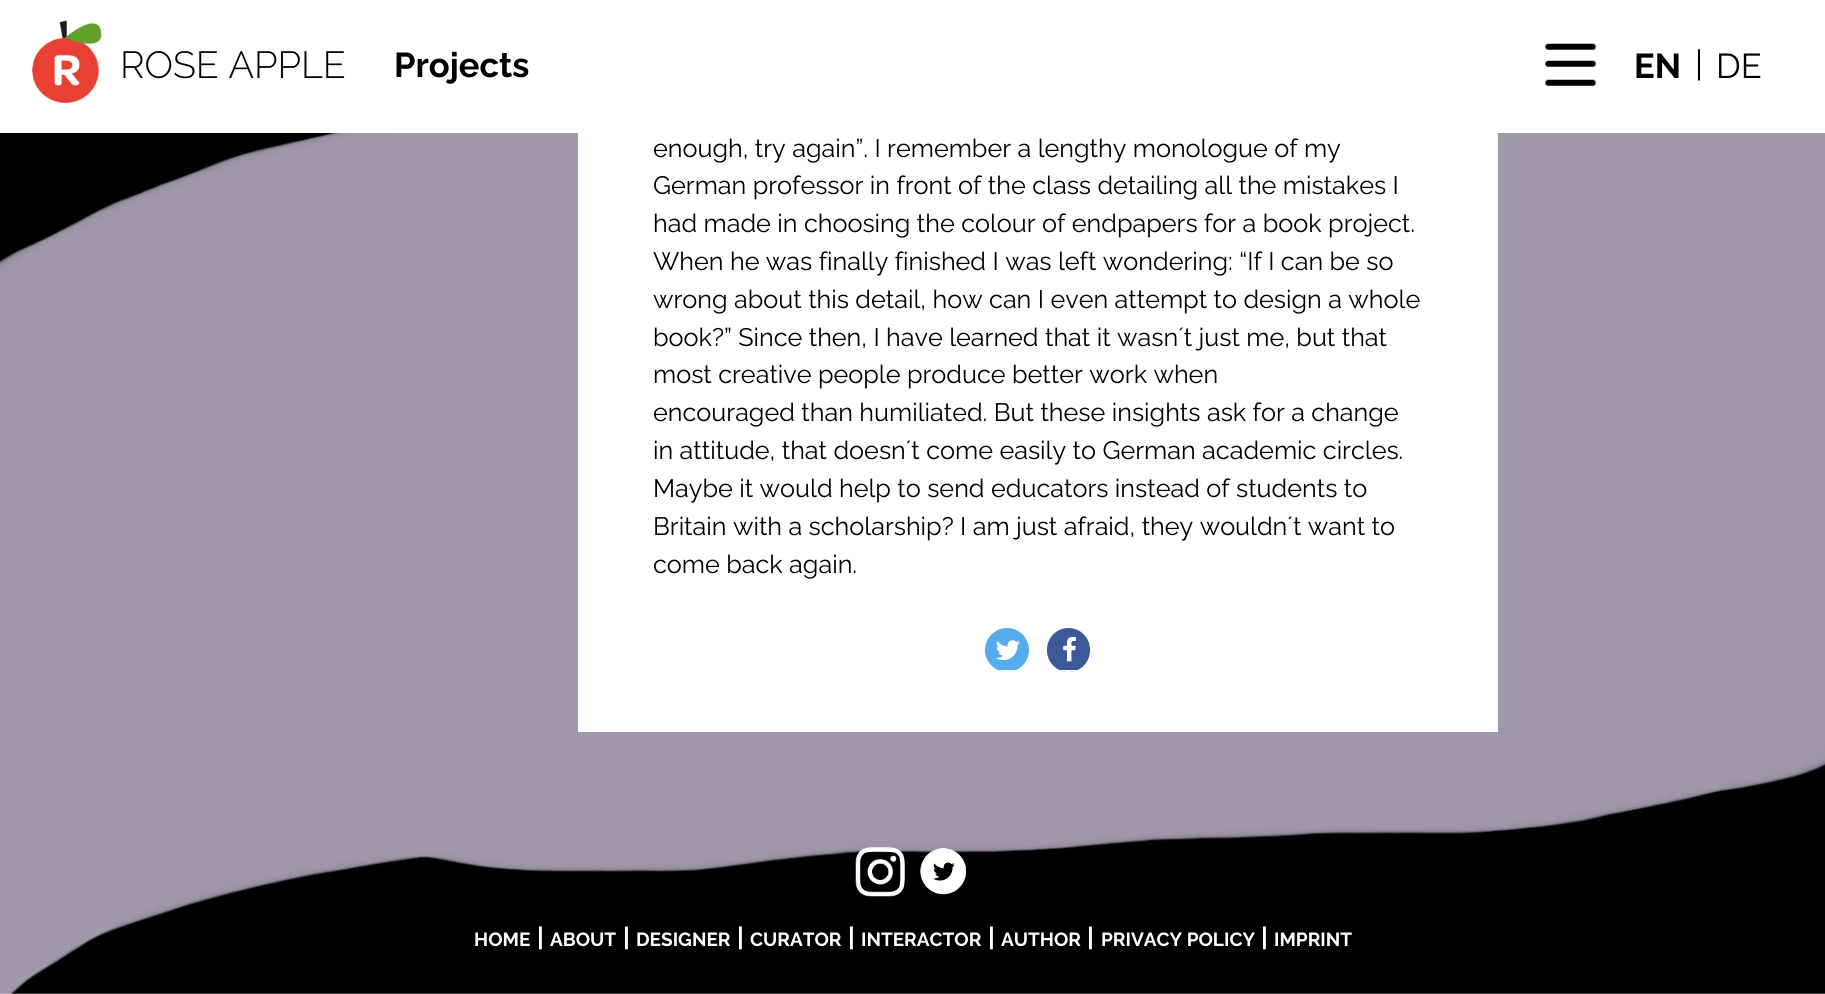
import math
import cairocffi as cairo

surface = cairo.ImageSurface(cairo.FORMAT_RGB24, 1825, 994)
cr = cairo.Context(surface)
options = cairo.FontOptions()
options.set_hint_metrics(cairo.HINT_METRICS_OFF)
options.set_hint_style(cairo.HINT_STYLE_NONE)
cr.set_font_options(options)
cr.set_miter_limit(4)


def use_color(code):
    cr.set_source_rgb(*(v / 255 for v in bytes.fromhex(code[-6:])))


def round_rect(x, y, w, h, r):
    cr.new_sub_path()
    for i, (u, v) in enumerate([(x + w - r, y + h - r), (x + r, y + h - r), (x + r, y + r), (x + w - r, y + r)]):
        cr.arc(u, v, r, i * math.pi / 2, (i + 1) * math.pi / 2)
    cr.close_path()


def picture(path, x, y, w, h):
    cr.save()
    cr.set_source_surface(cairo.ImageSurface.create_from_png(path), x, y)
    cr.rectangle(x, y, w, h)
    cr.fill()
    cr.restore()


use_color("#ffffff")
cr.paint()
picture("img1.png", 0, 133, 1825, 861)
picture("img2.png", 32, 20, 70, 84)
cr.select_font_face("Raleway Light")
cr.set_font_size(37.75)
use_color("#000000")
cr.move_to(120, 78)
cr.show_text("ROSE APPLE")
cr.select_font_face("Raleway", cairo.FONT_SLANT_NORMAL, cairo.FONT_WEIGHT_BOLD)
cr.set_font_size(34.5)
cr.move_to(394, 77)
cr.show_text("Projects")
picture("img3.png", 1545, 43, 52, 43)
cr.move_to(1634, 78)
cr.show_text("EN")
cr.select_font_face("Raleway")
cr.move_to(1695, 76)
cr.show_text("|")
cr.move_to(1716, 78)
cr.show_text("DE")
use_color("#ffffff")
cr.rectangle(578, 133, 920, 599)
cr.fill()
cr.set_font_size(25.2)
use_color("#000000")
cr.move_to(653, 157)
cr.show_text("enough, try again”. I remember a lengthy monologue of my")
cr.move_to(653, 194)
cr.show_text("German professor in front of the class detailing all the mistakes I")
cr.move_to(653, 232)
cr.show_text("had made in choosing the colour of endpapers for a book project.")
cr.move_to(653, 270)
cr.show_text("When he was finally finished I was left wondering: “If I can be so")
cr.move_to(653, 308)
cr.show_text("wrong about this detail, how can I even attempt to design a whole")
cr.move_to(653, 346)
cr.show_text("book?” Since then, I have learned that it wasn´t just me, but that")
cr.move_to(653, 383)
cr.show_text("most creative people produce better work when")
cr.move_to(653, 421)
cr.show_text("encouraged than humiliated. But these insights ask for a change")
cr.move_to(653, 459)
cr.show_text("in attitude, that doesn´t come easily to German academic circles.")
cr.move_to(653, 497)
cr.show_text("Maybe it would help to send educators instead of students to")
cr.move_to(653, 535)
cr.show_text("Britain with a scholarship? I am just afraid, they wouldn´t want to")
cr.move_to(653, 573)
cr.show_text("come back again.")
use_color("#55acee")
cr.new_path()
cr.arc(1007, 650, 22, 0, 2 * math.pi)
cr.fill()
cr.save()
round_rect(985, 628, 44, 44, 22)
cr.clip()
use_color("#ffffff")
cr.rectangle(996, 670, 23, 2)
cr.fill()
cr.restore()
picture("img4.png", 996, 640, 24, 21)
use_color("#3b5998")
round_rect(1047, 628, 43, 44, 21.5)
cr.fill()
cr.save()
round_rect(1047, 628, 43, 44, 21.5)
cr.clip()
use_color("#ffffff")
cr.rectangle(1057, 670, 23, 2)
cr.fill()
cr.restore()
picture("img5.png", 1063, 636, 13, 26)
picture("img6.png", 855, 847, 50, 50)
picture("img7.png", 920, 848, 46, 47)
cr.select_font_face("Raleway", cairo.FONT_SLANT_NORMAL, cairo.FONT_WEIGHT_BOLD)
cr.set_font_size(19)
use_color("#ffffff")
cr.move_to(474, 946)
cr.show_text("HOME")
cr.set_font_size(25.2)
cr.move_to(537, 946)
cr.show_text("|")
cr.set_font_size(19)
cr.move_to(550, 946)
cr.show_text("ABOUT")
cr.set_font_size(25.2)
cr.move_to(623, 946)
cr.show_text("|")
cr.set_font_size(19)
cr.move_to(636, 946)
cr.show_text("DESIGNER")
cr.set_font_size(25.2)
cr.move_to(737, 946)
cr.show_text("|")
cr.set_font_size(19)
cr.move_to(750, 946)
cr.show_text("CURATOR")
cr.set_font_size(25.2)
cr.move_to(848, 946)
cr.show_text("|")
cr.set_font_size(19)
cr.move_to(861, 946)
cr.show_text("INTERACTOR")
cr.set_font_size(25.2)
cr.move_to(988, 946)
cr.show_text("|")
cr.set_font_size(19)
cr.move_to(1001, 946)
cr.show_text("AUTHOR")
cr.set_font_size(25.2)
cr.move_to(1087, 946)
cr.show_text("|")
cr.set_font_size(19)
cr.move_to(1101, 946)
cr.show_text("PRIVACY POLICY")
cr.set_font_size(25.2)
cr.move_to(1261, 946)
cr.show_text("|")
cr.set_font_size(19)
cr.move_to(1274, 946)
cr.show_text("IMPRINT")
surface.write_to_png("result.png")
